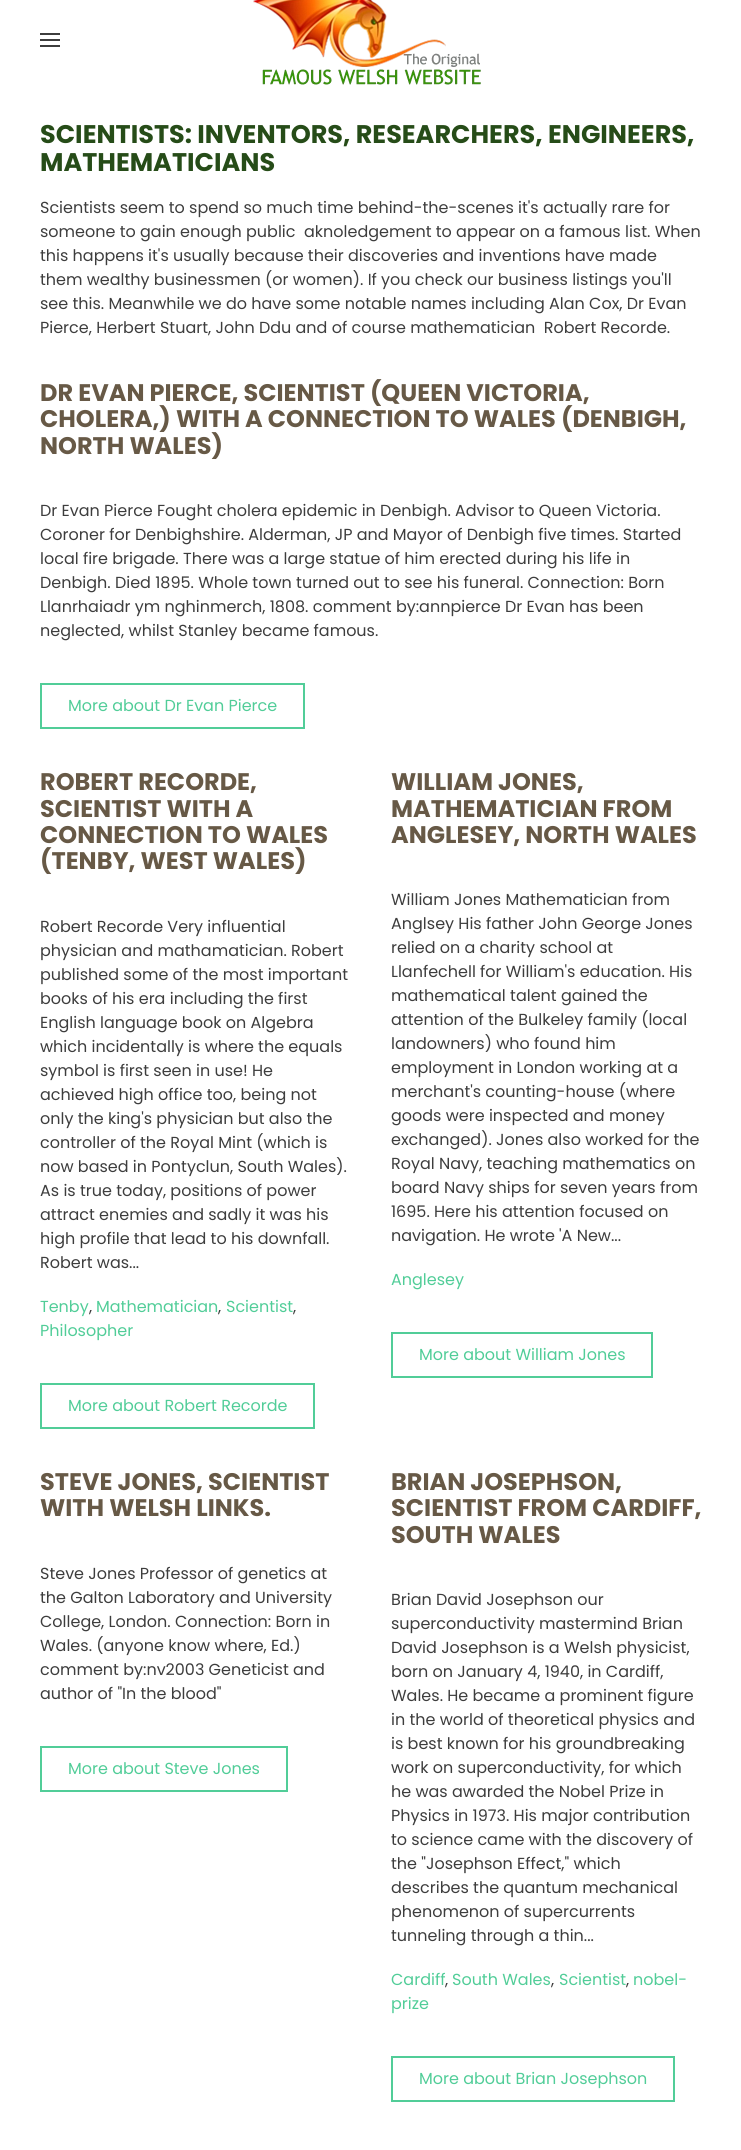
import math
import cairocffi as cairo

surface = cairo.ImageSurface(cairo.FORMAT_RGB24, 741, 2150)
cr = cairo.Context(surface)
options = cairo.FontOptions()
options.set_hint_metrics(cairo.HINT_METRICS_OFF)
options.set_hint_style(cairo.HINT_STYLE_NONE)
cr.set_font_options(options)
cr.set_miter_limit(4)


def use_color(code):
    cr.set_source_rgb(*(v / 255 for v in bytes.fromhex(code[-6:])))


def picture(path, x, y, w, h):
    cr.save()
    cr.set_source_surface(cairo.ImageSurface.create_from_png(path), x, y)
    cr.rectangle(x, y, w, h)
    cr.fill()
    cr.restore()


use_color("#ffffff")
cr.paint()
use_color("#3d3d3d")
cr.rectangle(40, 33, 20, 2)
cr.fill()
cr.rectangle(40, 39, 20, 2)
cr.fill()
cr.rectangle(40, 45, 20, 2)
cr.fill()
picture("img1.png", 253, 0, 228, 85)
cr.select_font_face("Poppins", cairo.FONT_SLANT_NORMAL, cairo.FONT_WEIGHT_BOLD)
cr.set_font_size(25.5)
use_color("#264c18")
cr.move_to(40, 143)
cr.show_text("SCIENTISTS: INVENTORS, RESEARCHERS, ENGINEERS,")
cr.move_to(40, 171)
cr.show_text("MATHEMATICIANS")
cr.select_font_face("Poppins")
cr.set_font_size(16)
use_color("#3d3d3d")
cr.move_to(40, 213)
cr.show_text("Scientists seem to spend so much time behind-the-scenes it's actually rare for")
cr.move_to(40, 237)
cr.show_text("someone to gain enough public  aknoledgement to appear on a famous list. When")
cr.move_to(40, 261)
cr.show_text("this happens it's usually because their discoveries and inventions have made")
cr.move_to(40, 285)
cr.show_text("them wealthy businessmen (or women). If you check our business listings you'll")
cr.move_to(40, 309)
cr.show_text("see this. Meanwhile we do have some notable names including Alan Cox, Dr Evan")
cr.move_to(40, 333)
cr.show_text("Pierce, Herbert Stuart, John Ddu and of course mathematician  Robert Recorde.")
cr.select_font_face("Poppins", cairo.FONT_SLANT_NORMAL, cairo.FONT_WEIGHT_BOLD)
cr.set_font_size(24)
use_color("#675946")
cr.move_to(40, 401)
cr.show_text("DR EVAN PIERCE, SCIENTIST (QUEEN VICTORIA,")
cr.move_to(40, 427)
cr.show_text("CHOLERA,) WITH A CONNECTION TO WALES (DENBIGH,")
cr.move_to(40, 454)
cr.show_text("NORTH WALES)")
cr.select_font_face("Poppins")
cr.set_font_size(16)
use_color("#3d3d3d")
cr.move_to(40, 516)
cr.show_text("Dr Evan Pierce Fought cholera epidemic in Denbigh. Advisor to Queen Victoria.")
cr.move_to(40, 540)
cr.show_text("Coroner for Denbighshire. Alderman, JP and Mayor of Denbigh five times. Started")
cr.move_to(40, 564)
cr.show_text("local fire brigade. There was a large statue of him erected during his life in")
cr.move_to(40, 588)
cr.show_text("Denbigh. Died 1895. Whole town turned out to see his funeral. Connection: Born")
cr.move_to(40, 612)
cr.show_text("Llanrhaiadr ym nghinmerch, 1808. comment by:annpierce Dr Evan has been")
cr.move_to(40, 636)
cr.show_text("neglected, whilst Stanley became famous.")
cr.rectangle(41, 684, 263, 44)
use_color("#51cd98")
cr.stroke()
cr.move_to(68, 711)
cr.show_text("More about Dr Evan Pierce")
cr.select_font_face("Poppins", cairo.FONT_SLANT_NORMAL, cairo.FONT_WEIGHT_BOLD)
cr.set_font_size(24)
use_color("#675946")
cr.move_to(40, 790)
cr.show_text("ROBERT RECORDE,")
cr.move_to(40, 817)
cr.show_text("SCIENTIST WITH A")
cr.move_to(40, 843)
cr.show_text("CONNECTION TO WALES")
cr.move_to(40, 869)
cr.show_text("(TENBY, WEST WALES)")
cr.select_font_face("Poppins")
cr.set_font_size(16)
use_color("#3d3d3d")
cr.move_to(40, 932)
cr.show_text("Robert Recorde Very influential")
cr.move_to(40, 956)
cr.show_text("physician and mathamatician. Robert")
cr.move_to(40, 980)
cr.show_text("published some of the most important")
cr.move_to(40, 1004)
cr.show_text("books of his era including the first")
cr.move_to(40, 1028)
cr.show_text("English language book on Algebra")
cr.move_to(40, 1052)
cr.show_text("which incidentally is where the equals")
cr.move_to(40, 1076)
cr.show_text("symbol is first seen in use! He")
cr.move_to(40, 1100)
cr.show_text("achieved high office too, being not")
cr.move_to(40, 1124)
cr.show_text("only the king's physician but also the")
cr.move_to(40, 1148)
cr.show_text("controller of the Royal Mint (which is")
cr.move_to(40, 1172)
cr.show_text("now based in Pontyclun, South Wales).")
cr.move_to(40, 1196)
cr.show_text("As is true today, positions of power")
cr.move_to(40, 1220)
cr.show_text("attract enemies and sadly it was his")
cr.move_to(40, 1244)
cr.show_text("high profile that lead to his downfall.")
cr.move_to(40, 1268)
cr.show_text("Robert was...")
use_color("#51cd98")
cr.move_to(40, 1312)
cr.show_text("Tenby")
use_color("#3d3d3d")
cr.move_to(89, 1312)
cr.show_text(",")
use_color("#51cd98")
cr.move_to(96, 1312)
cr.show_text("Mathematician")
use_color("#3d3d3d")
cr.move_to(218, 1312)
cr.show_text(",")
use_color("#51cd98")
cr.move_to(226, 1312)
cr.show_text("Scientist")
use_color("#3d3d3d")
cr.move_to(293, 1312)
cr.show_text(",")
use_color("#51cd98")
cr.move_to(40, 1336)
cr.show_text("Philosopher")
cr.rectangle(41, 1384, 273, 44)
cr.stroke()
cr.move_to(68, 1411)
cr.show_text("More about Robert Recorde")
cr.select_font_face("Poppins", cairo.FONT_SLANT_NORMAL, cairo.FONT_WEIGHT_BOLD)
cr.set_font_size(24)
use_color("#675946")
cr.move_to(391, 790)
cr.show_text("WILLIAM JONES,")
cr.move_to(391, 817)
cr.show_text("MATHEMATICIAN FROM")
cr.move_to(391, 843)
cr.show_text("ANGLESEY, NORTH WALES")
cr.select_font_face("Poppins")
cr.set_font_size(16)
use_color("#3d3d3d")
cr.move_to(391, 905)
cr.show_text("William Jones Mathematician from")
cr.move_to(391, 929)
cr.show_text("Anglsey His father John George Jones")
cr.move_to(391, 953)
cr.show_text("relied on a charity school at")
cr.move_to(391, 977)
cr.show_text("Llanfechell for William's education. His")
cr.move_to(391, 1001)
cr.show_text("mathematical talent gained the")
cr.move_to(391, 1025)
cr.show_text("attention of the Bulkeley family (local")
cr.move_to(391, 1049)
cr.show_text("landowners) who found him")
cr.move_to(391, 1073)
cr.show_text("employment in London working at a")
cr.move_to(391, 1097)
cr.show_text("merchant's counting-house (where")
cr.move_to(391, 1121)
cr.show_text("goods were inspected and money")
cr.move_to(391, 1145)
cr.show_text("exchanged). Jones also worked for the")
cr.move_to(391, 1169)
cr.show_text("Royal Navy, teaching mathematics on")
cr.move_to(391, 1193)
cr.show_text("board Navy ships for seven years from")
cr.move_to(391, 1217)
cr.show_text("1695. Here his attention focused on")
cr.move_to(391, 1241)
cr.show_text("navigation. He wrote 'A New...")
use_color("#51cd98")
cr.move_to(391, 1285)
cr.show_text("Anglesey")
cr.rectangle(392, 1333, 260, 44)
cr.stroke()
cr.move_to(419, 1360)
cr.show_text("More about William Jones")
cr.select_font_face("Poppins", cairo.FONT_SLANT_NORMAL, cairo.FONT_WEIGHT_BOLD)
cr.set_font_size(24)
use_color("#675946")
cr.move_to(40, 1490)
cr.show_text("STEVE JONES, SCIENTIST")
cr.move_to(40, 1516)
cr.show_text("WITH WELSH LINKS.")
cr.select_font_face("Poppins")
cr.set_font_size(16)
use_color("#3d3d3d")
cr.move_to(40, 1579)
cr.show_text("Steve Jones Professor of genetics at")
cr.move_to(40, 1603)
cr.show_text("the Galton Laboratory and University")
cr.move_to(40, 1627)
cr.show_text("College, London. Connection: Born in")
cr.move_to(40, 1651)
cr.show_text("Wales. (anyone know where, Ed.)")
cr.move_to(40, 1675)
cr.show_text("comment by:nv2003 Geneticist and")
cr.move_to(40, 1699)
cr.show_text("author of \"In the blood\"")
cr.rectangle(41, 1747, 246, 44)
use_color("#51cd98")
cr.stroke()
cr.move_to(68, 1774)
cr.show_text("More about Steve Jones")
cr.select_font_face("Poppins", cairo.FONT_SLANT_NORMAL, cairo.FONT_WEIGHT_BOLD)
cr.set_font_size(24)
use_color("#675946")
cr.move_to(391, 1490)
cr.show_text("BRIAN JOSEPHSON,")
cr.move_to(391, 1516)
cr.show_text("SCIENTIST FROM CARDIFF,")
cr.move_to(391, 1543)
cr.show_text("SOUTH WALES")
cr.select_font_face("Poppins")
cr.set_font_size(16)
use_color("#3d3d3d")
cr.move_to(391, 1605)
cr.show_text("Brian David Josephson our")
cr.move_to(391, 1629)
cr.show_text("superconductivity mastermind Brian")
cr.move_to(391, 1653)
cr.show_text("David Josephson is a Welsh physicist,")
cr.move_to(391, 1677)
cr.show_text("born on January 4, 1940, in Cardiff,")
cr.move_to(391, 1701)
cr.show_text("Wales. He became a prominent figure")
cr.move_to(391, 1725)
cr.show_text("in the world of theoretical physics and")
cr.move_to(391, 1749)
cr.show_text("is best known for his groundbreaking")
cr.move_to(391, 1773)
cr.show_text("work on superconductivity, for which")
cr.move_to(391, 1797)
cr.show_text("he was awarded the Nobel Prize in")
cr.move_to(391, 1821)
cr.show_text("Physics in 1973. His major contribution")
cr.move_to(391, 1845)
cr.show_text("to science came with the discovery of")
cr.move_to(391, 1869)
cr.show_text("the \"Josephson Effect,\" which")
cr.move_to(391, 1893)
cr.show_text("describes the quantum mechanical")
cr.move_to(391, 1917)
cr.show_text("phenomenon of supercurrents")
cr.move_to(391, 1941)
cr.show_text("tunneling through a thin...")
use_color("#51cd98")
cr.move_to(391, 1985)
cr.show_text("Cardiff")
use_color("#3d3d3d")
cr.move_to(445, 1985)
cr.show_text(",")
use_color("#51cd98")
cr.move_to(452, 1985)
cr.show_text("South Wales")
use_color("#3d3d3d")
cr.move_to(551, 1985)
cr.show_text(",")
use_color("#51cd98")
cr.move_to(559, 1985)
cr.show_text("Scientist")
use_color("#3d3d3d")
cr.move_to(626, 1985)
cr.show_text(",")
use_color("#51cd98")
cr.move_to(633, 1985)
cr.show_text("nobel-")
cr.move_to(391, 2009)
cr.show_text("prize")
cr.rectangle(392, 2057, 282, 44)
cr.stroke()
cr.move_to(419, 2084)
cr.show_text("More about Brian Josephson")
surface.write_to_png("result.png")
